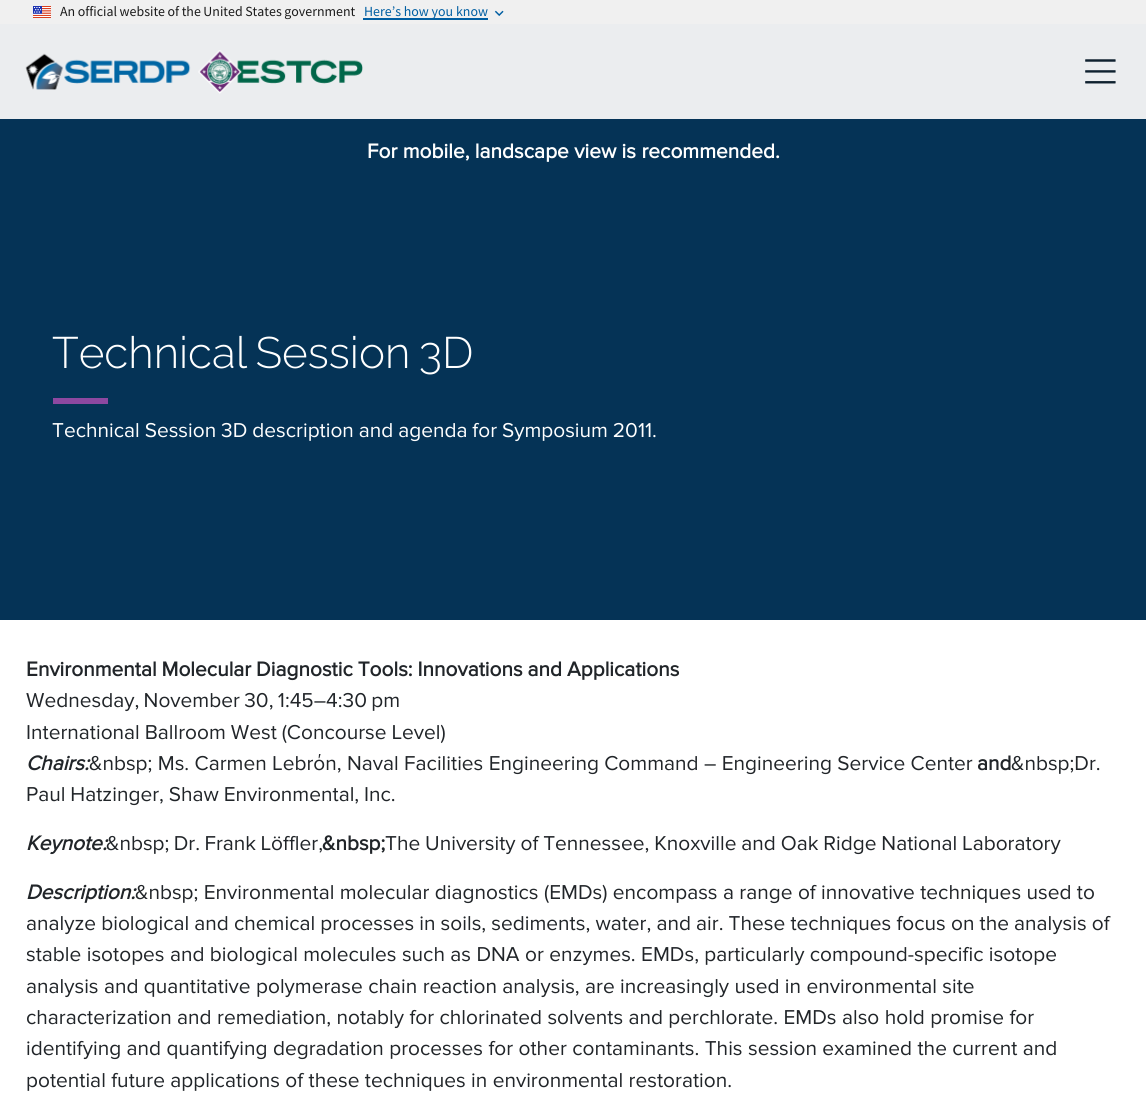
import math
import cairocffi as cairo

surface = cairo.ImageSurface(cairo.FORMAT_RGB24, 1146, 1099)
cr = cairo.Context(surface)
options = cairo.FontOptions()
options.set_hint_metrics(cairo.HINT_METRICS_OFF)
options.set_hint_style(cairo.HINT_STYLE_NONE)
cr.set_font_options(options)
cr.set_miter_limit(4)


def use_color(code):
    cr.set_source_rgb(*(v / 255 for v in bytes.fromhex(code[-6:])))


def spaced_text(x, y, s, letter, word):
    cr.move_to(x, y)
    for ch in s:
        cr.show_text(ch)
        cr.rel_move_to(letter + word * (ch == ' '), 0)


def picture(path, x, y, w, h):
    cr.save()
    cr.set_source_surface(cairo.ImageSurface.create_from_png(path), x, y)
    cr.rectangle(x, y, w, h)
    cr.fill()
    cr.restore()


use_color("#ffffff")
cr.paint()
use_color("#f0f0f0")
cr.rectangle(0, 0, 1146, 24)
cr.fill()
picture("img1.png", 33, 6, 18, 12)
cr.select_font_face("Source Sans Pro")
cr.set_font_size(13.9)
use_color("#1b1b1b")
spaced_text(60, 16, "An official website of the United States government", 0, -0.25)
use_color("#005ea2")
cr.rectangle(363, 18, 125, 2)
cr.fill()
cr.move_to(364, 16)
cr.show_text("Here’s how you know")
picture("img2.png", 494, 10, 10, 6)
use_color("#ebedef")
cr.rectangle(0, 24, 1146, 95)
cr.fill()
picture("img3.png", 25, 50, 338, 44)
picture("img4.png", 1085, 59, 31, 25)
use_color("#053356")
cr.rectangle(0, 119, 1146, 501)
cr.fill()
cr.select_font_face("Proxima Nova", cairo.FONT_SLANT_NORMAL, cairo.FONT_WEIGHT_BOLD)
cr.set_font_size(20.88)
use_color("#ffffff")
cr.move_to(367, 158)
cr.show_text("For mobile, landscape view is recommended.")
cr.select_font_face("Raleway Light")
cr.set_font_size(44)
spaced_text(52, 368, "Technical Session 3D", 0, -3)
use_color("#8d48a0")
cr.rectangle(53, 398, 55, 6)
cr.fill()
cr.select_font_face("Proxima Nova")
cr.set_font_size(20.88)
use_color("#ffffff")
spaced_text(52, 437, "Technical Session 3D description and agenda for Symposium 2011.", 0, -0.5)
cr.select_font_face("Proxima Nova", cairo.FONT_SLANT_NORMAL, cairo.FONT_WEIGHT_BOLD)
use_color("#212529")
spaced_text(26, 676, "Environmental Molecular Diagnostic Tools: Innovations and Applications", 0, -0.5)
cr.select_font_face("Proxima Nova")
spaced_text(26, 707, "Wednesday, November 30, 1:45–4:30 pm", 0, -1)
spaced_text(26, 739, "International Ballroom West (Concourse Level)", 0, -0.5)
cr.select_font_face("Proxima Nova", cairo.FONT_SLANT_ITALIC, cairo.FONT_WEIGHT_BOLD)
cr.move_to(26, 770)
cr.show_text("Chairs:")
cr.select_font_face("Proxima Nova")
cr.move_to(89, 770)
cr.show_text("&nbsp; Ms. Carmen Lebrόn, Naval Facilities Engineering Command – Engineering Service Center")
cr.select_font_face("Proxima Nova", cairo.FONT_SLANT_NORMAL, cairo.FONT_WEIGHT_BOLD)
cr.move_to(977, 770)
cr.show_text("and")
cr.select_font_face("Proxima Nova")
cr.move_to(1011, 770)
cr.show_text("&nbsp;Dr.")
spaced_text(26, 801, "Paul Hatzinger, Shaw Environmental, Inc.", 0, -0.5)
cr.select_font_face("Proxima Nova", cairo.FONT_SLANT_ITALIC, cairo.FONT_WEIGHT_BOLD)
cr.move_to(26, 850)
cr.show_text("Keynote:")
cr.select_font_face("Proxima Nova")
spaced_text(106, 850, "&nbsp; Dr. Frank Löffler,", 0, -1)
cr.select_font_face("Proxima Nova", cairo.FONT_SLANT_NORMAL, cairo.FONT_WEIGHT_BOLD)
cr.move_to(322, 850)
cr.show_text("&nbsp;")
cr.select_font_face("Proxima Nova")
spaced_text(385, 850, "The University of Tennessee, Knoxville and Oak Ridge National Laboratory", 0, -0.5)
cr.select_font_face("Proxima Nova", cairo.FONT_SLANT_ITALIC, cairo.FONT_WEIGHT_BOLD)
cr.move_to(26, 899)
cr.show_text("Description:")
cr.select_font_face("Proxima Nova")
cr.move_to(135, 899)
cr.show_text("&nbsp; Environmental molecular diagnostics (EMDs) encompass a range of innovative techniques used to")
spaced_text(26, 930, "analyze biological and chemical processes in soils, sediments, water, and air. These techniques focus on the analysis of", 0, -0.25)
cr.move_to(26, 961)
cr.show_text("stable isotopes and biological molecules such as DNA or enzymes. EMDs, particularly compound-specific isotope")
cr.move_to(26, 993)
cr.show_text("analysis and quantitative polymerase chain reaction analysis, are increasingly used in environmental site")
cr.move_to(26, 1024)
cr.show_text("characterization and remediation, notably for chlorinated solvents and perchlorate. EMDs also hold promise for")
cr.move_to(26, 1055)
cr.show_text("identifying and quantifying degradation processes for other contaminants. This session examined the current and")
cr.move_to(26, 1087)
cr.show_text("potential future applications of these techniques in environmental restoration.")
surface.write_to_png("result.png")
